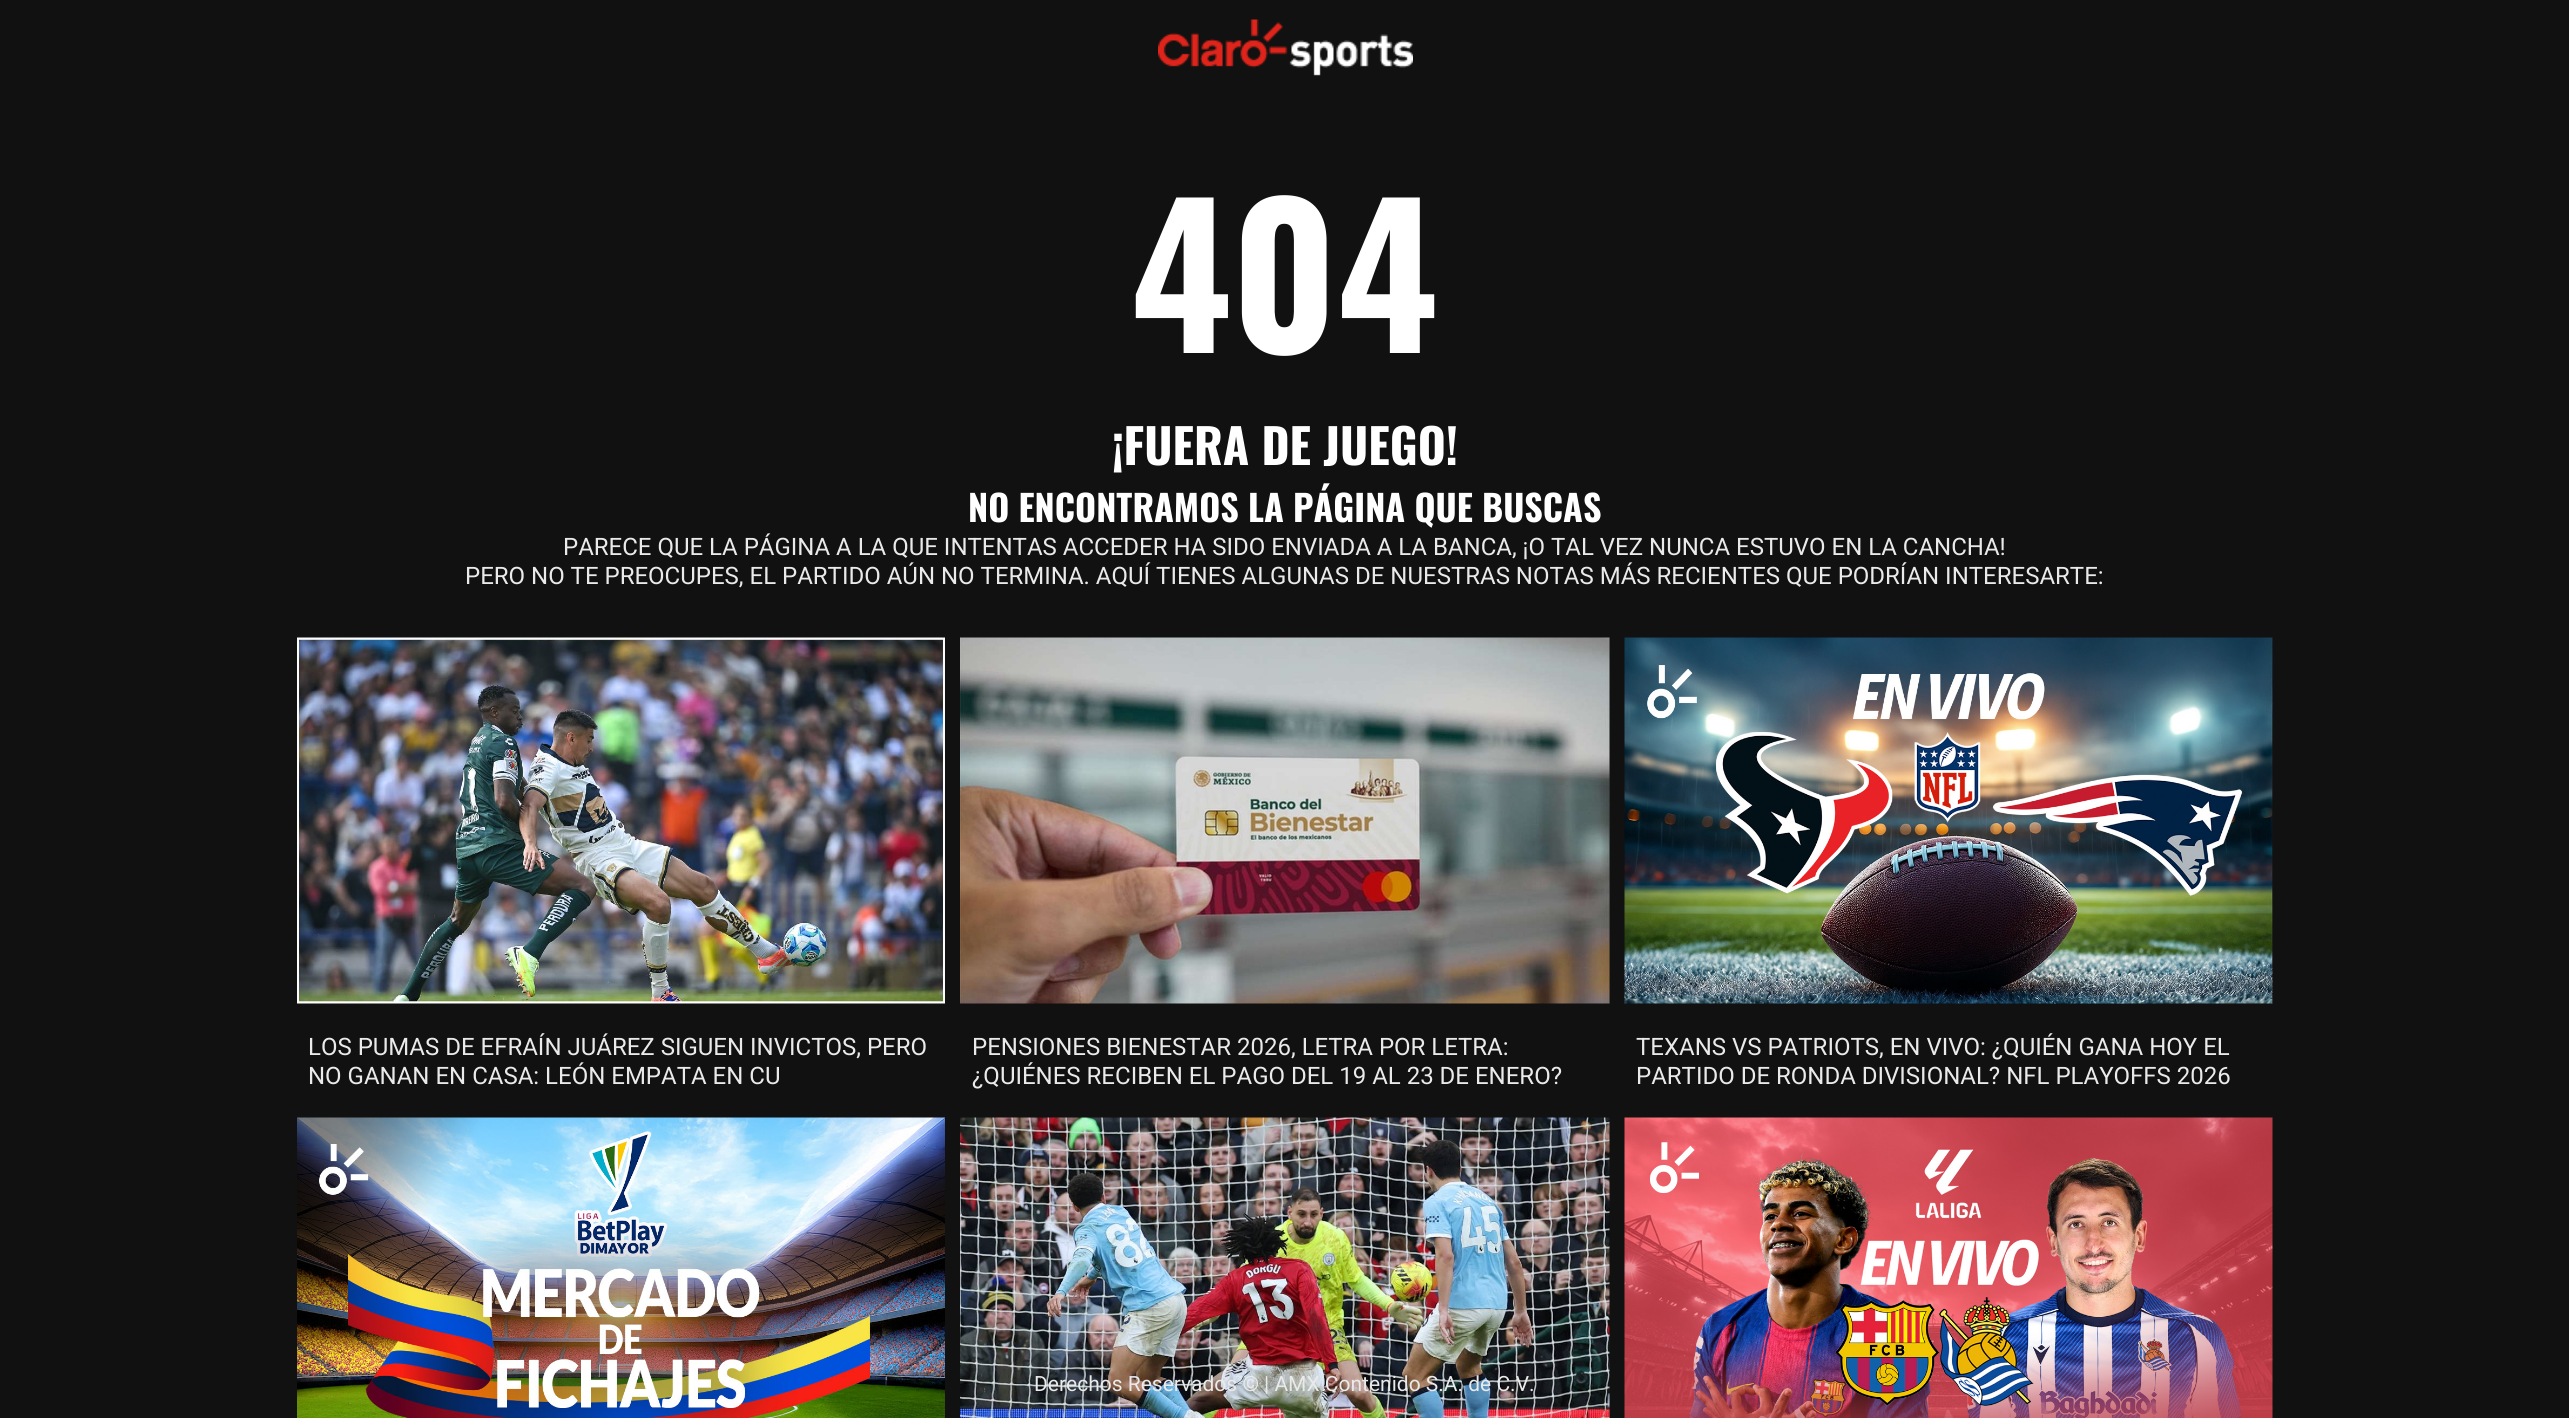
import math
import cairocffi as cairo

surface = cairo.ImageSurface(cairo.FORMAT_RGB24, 2569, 1418)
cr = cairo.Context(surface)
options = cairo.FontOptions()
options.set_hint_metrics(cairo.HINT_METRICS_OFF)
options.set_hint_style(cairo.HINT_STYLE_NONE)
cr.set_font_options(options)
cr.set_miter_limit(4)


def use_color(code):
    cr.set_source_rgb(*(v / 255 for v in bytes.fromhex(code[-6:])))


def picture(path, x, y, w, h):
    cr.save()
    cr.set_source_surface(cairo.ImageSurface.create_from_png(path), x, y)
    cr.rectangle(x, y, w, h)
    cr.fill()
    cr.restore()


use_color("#111111")
cr.paint()
picture("img1.png", 1158, 19, 255, 57)
cr.select_font_face("Oswald", cairo.FONT_SLANT_NORMAL, cairo.FONT_WEIGHT_BOLD)
cr.set_font_size(192)
use_color("#ffffff")
cr.move_to(1131, 353)
cr.show_text("404")
cr.set_font_size(48)
cr.move_to(1112, 465)
cr.show_text("¡FUERA DE JUEGO!")
cr.set_font_size(36)
cr.move_to(968, 522)
cr.show_text("NO ENCONTRAMOS LA PÁGINA QUE BUSCAS")
cr.select_font_face("Roboto")
cr.set_font_size(24)
use_color("#eaeaea")
cr.move_to(563, 555)
cr.show_text("PARECE QUE LA PÁGINA A LA QUE INTENTAS ACCEDER HA SIDO ENVIADA A LA BANCA, ¡O TAL VEZ NUNCA ESTUVO EN LA CANCHA!")
cr.move_to(465, 584)
cr.show_text("PERO NO TE PREOCUPES, EL PARTIDO AÚN NO TERMINA. AQUÍ TIENES ALGUNAS DE NUESTRAS NOTAS MÁS RECIENTES QUE PODRÍAN INTERESARTE:")
picture("img2.png", 297, 637, 648, 367)
cr.move_to(308, 1055)
cr.show_text("LOS PUMAS DE EFRAÍN JUÁREZ SIGUEN INVICTOS, PERO")
cr.move_to(308, 1084)
cr.show_text("NO GANAN EN CASA: LEÓN EMPATA EN CU")
picture("img3.png", 960, 637, 650, 367)
cr.move_to(972, 1055)
cr.show_text("PENSIONES BIENESTAR 2026, LETRA POR LETRA:")
cr.move_to(972, 1084)
cr.show_text("¿QUIÉNES RECIBEN EL PAGO DEL 19 AL 23 DE ENERO?")
picture("img4.png", 1624, 637, 649, 367)
cr.move_to(1636, 1055)
cr.show_text("TEXANS VS PATRIOTS, EN VIVO: ¿QUIÉN GANA HOY EL")
cr.move_to(1636, 1084)
cr.show_text("PARTIDO DE RONDA DIVISIONAL? NFL PLAYOFFS 2026")
picture("img5.png", 297, 1117, 648, 301)
picture("img6.png", 960, 1117, 650, 301)
picture("img7.png", 1624, 1117, 649, 301)
cr.set_font_size(21)
cr.move_to(1034, 1391)
cr.show_text("Derechos Reservados © | AMX Contenido S.A. de C.V.")
surface.write_to_png("result.png")
